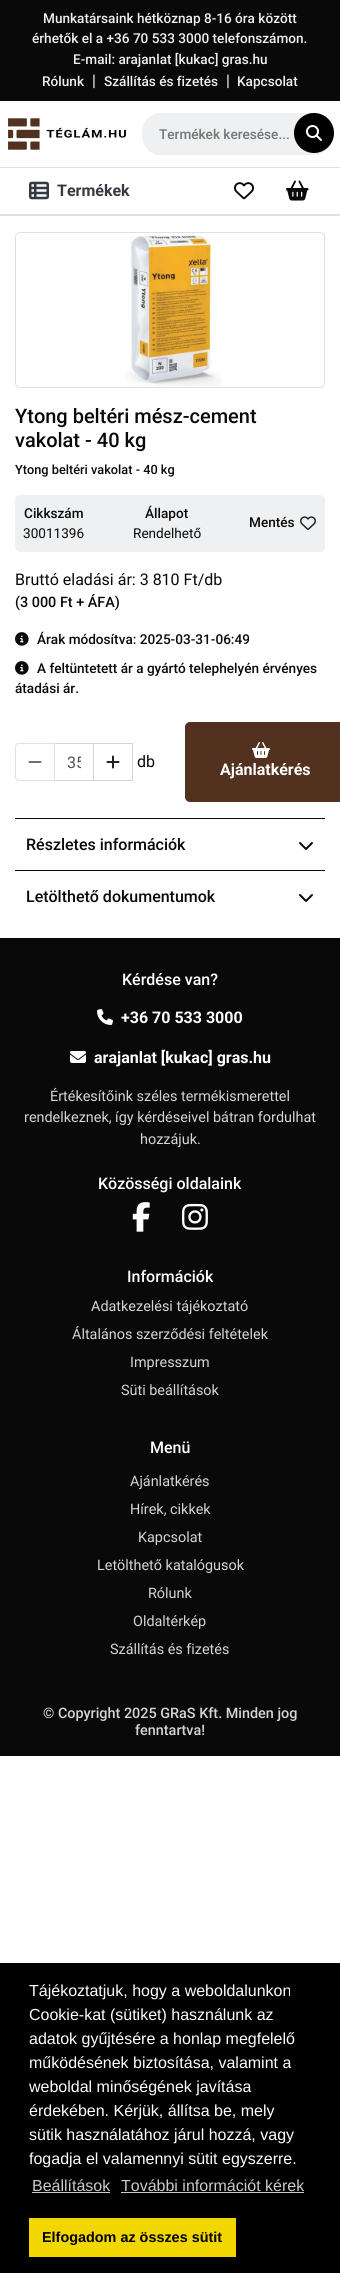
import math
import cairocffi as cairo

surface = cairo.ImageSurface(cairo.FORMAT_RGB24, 340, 2273)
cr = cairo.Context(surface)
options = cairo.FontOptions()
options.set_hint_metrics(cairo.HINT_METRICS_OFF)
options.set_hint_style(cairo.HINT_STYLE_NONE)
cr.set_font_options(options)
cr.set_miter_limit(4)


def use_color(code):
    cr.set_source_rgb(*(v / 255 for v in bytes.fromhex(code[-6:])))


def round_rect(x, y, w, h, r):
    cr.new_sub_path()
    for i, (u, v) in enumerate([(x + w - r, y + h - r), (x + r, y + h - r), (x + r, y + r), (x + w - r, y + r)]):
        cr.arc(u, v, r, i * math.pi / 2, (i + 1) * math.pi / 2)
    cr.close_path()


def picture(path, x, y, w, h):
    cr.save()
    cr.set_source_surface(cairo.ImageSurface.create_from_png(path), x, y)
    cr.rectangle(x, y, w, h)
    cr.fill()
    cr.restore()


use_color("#ffffff")
cr.paint()
use_color("#0a0909")
cr.rectangle(0, 0, 340, 101)
cr.fill()
cr.select_font_face("Roboto Medium")
cr.set_font_size(13.6)
use_color("#f0f0f0")
cr.move_to(43, 23)
cr.show_text("Munkatársaink hétköznap 8-16 óra között")
cr.move_to(32, 43)
cr.show_text("érhetők el a +36 70 533 3000 telefonszámon.")
cr.move_to(73, 64)
cr.show_text("E-mail: arajanlat [kukac] gras.hu")
cr.move_to(42, 86)
cr.show_text("Rólunk")
cr.select_font_face("Roboto")
cr.set_font_size(16)
use_color("#f9f9f9")
cr.move_to(92, 86)
cr.show_text("|")
cr.select_font_face("Roboto Medium")
cr.set_font_size(13.6)
use_color("#f0f0f0")
cr.move_to(104, 86)
cr.show_text("Szállítás és fizetés")
cr.select_font_face("Roboto")
cr.set_font_size(16)
use_color("#f9f9f9")
cr.move_to(226, 86)
cr.show_text("|")
cr.select_font_face("Roboto Medium")
cr.set_font_size(13.6)
use_color("#f0f0f0")
cr.move_to(237, 86)
cr.show_text("Kapcsolat")
use_color("#e0e0e0")
cr.rectangle(0, 214, 340, 2)
cr.fill()
picture("img1.png", 8, 118, 118, 32)
use_color("#eff0f1")
cr.new_path()
cr.move_to(160, 113)
cr.line_to(314, 113)
cr.curve_to(324, 113, 332, 122, 332, 134)
cr.curve_to(332, 146, 324, 155, 314, 155)
cr.line_to(160, 155)
cr.curve_to(150, 155, 142, 146, 142, 134)
cr.curve_to(142, 122, 150, 113, 160, 113)
cr.close_path()
cr.fill()
cr.new_path()
cr.move_to(160.5, 113.5)
cr.line_to(313.5, 113.5)
cr.curve_to(323.5, 113.5, 331.5, 122.5, 331.5, 134)
cr.curve_to(331.5, 145.5, 323.5, 154.5, 313.5, 154.5)
cr.line_to(160.5, 154.5)
cr.curve_to(150.5, 154.5, 142.5, 145.5, 142.5, 134)
cr.curve_to(142.5, 122.5, 150.5, 113.5, 160.5, 113.5)
cr.close_path()
use_color("#efefef")
cr.set_line_width(1)
cr.stroke()
use_color("#757575")
cr.move_to(159, 139)
cr.show_text("Termékek keresése...")
use_color("#000000")
cr.new_path()
cr.arc(314, 133, 20, 0, 2 * math.pi)
cr.fill()
picture("img2.png", 306, 125, 16, 16)
use_color("#e0e0e0")
cr.rectangle(0, 167, 340, 1)
cr.fill()
picture("img3.png", 29, 181, 20, 19)
cr.select_font_face("Roboto", cairo.FONT_SLANT_NORMAL, cairo.FONT_WEIGHT_BOLD)
cr.set_font_size(16)
use_color("#343a40")
cr.move_to(57, 196)
cr.show_text("Termékek")
picture("img4.png", 234, 182, 20, 18)
picture("img5.png", 286, 180, 23, 21)
round_rect(15.5, 232.5, 309, 155, 4.5)
use_color("#e0e0e0")
cr.stroke()
picture("img6.png", 125, 235, 97, 152)
cr.select_font_face("Roboto Medium")
cr.set_font_size(20)
use_color("#0a0909")
cr.move_to(15, 423)
cr.show_text("Ytong beltéri mész-cement")
cr.move_to(15, 447)
cr.show_text("vakolat - 40 kg")
cr.set_font_size(12.75)
cr.move_to(15, 474)
cr.show_text("Ytong beltéri vakolat - 40 kg")
use_color("#eff0f1")
round_rect(15, 495, 310, 57, 5)
cr.fill()
cr.set_font_size(13.6)
use_color("#0a0909")
cr.move_to(24, 518)
cr.show_text("Cikkszám")
cr.select_font_face("Roboto")
cr.move_to(23, 538)
cr.show_text("30011396")
cr.select_font_face("Roboto Medium")
cr.move_to(145, 518)
cr.show_text("Állapot")
cr.select_font_face("Roboto")
cr.move_to(133, 538)
cr.show_text("Rendelhető")
cr.select_font_face("Roboto Medium")
cr.move_to(249, 527)
cr.show_text("Mentés")
picture("img7.png", 300, 516, 16, 14)
cr.select_font_face("Roboto")
cr.set_font_size(16)
cr.move_to(15, 585)
cr.show_text("Bruttó eladási ár: 3 810 Ft/db")
cr.select_font_face("Roboto Medium")
cr.set_font_size(14.4)
cr.move_to(15, 607)
cr.show_text("(3 000 Ft + ÁFA)")
picture("img8.png", 15, 632, 14, 14)
cr.set_font_size(13.6)
cr.move_to(37, 644)
cr.show_text("Árak módosítva: 2025-03-31-06:49")
picture("img8.png", 15, 661, 14, 14)
cr.move_to(37, 673)
cr.show_text("A feltüntetett ár a gyártó telephelyén érvényes")
cr.move_to(15, 693)
cr.show_text("átadási ár.")
cr.rectangle(54.5, 743.5, 39, 37)
use_color("#ced4da")
cr.stroke()
cr.set_source_rgba(1, 1, 1, 0.65)
cr.new_path()
cr.move_to(19, 743)
cr.line_to(55, 743)
cr.line_to(55, 781)
cr.line_to(19, 781)
cr.curve_to(17, 781, 15, 779, 15, 777)
cr.line_to(15, 747)
cr.curve_to(15, 745, 17, 743, 19, 743)
cr.close_path()
cr.fill()
cr.new_path()
cr.move_to(19, 743.5)
cr.line_to(54.5, 743.5)
cr.line_to(54.5, 780.5)
cr.line_to(19, 780.5)
cr.curve_to(17, 780.5, 15.5, 779, 15.5, 777)
cr.line_to(15.5, 747)
cr.curve_to(15.5, 745, 17, 743.5, 19, 743.5)
cr.close_path()
cr.set_source_rgba(0.808, 0.831, 0.855, 0.65)
cr.stroke()
picture("img9.png", 28, 761, 14, 2)
cr.save()
cr.rectangle(67, 753, 14, 19)
cr.clip()
cr.select_font_face("Roboto")
cr.set_font_size(16)
use_color("#495057")
cr.move_to(67, 768)
cr.show_text("35")
cr.restore()
cr.rectangle(93.5, 743.5, 39, 37)
use_color("#ced4da")
cr.stroke()
picture("img10.png", 106, 755, 14, 14)
cr.select_font_face("Roboto")
cr.set_font_size(16)
use_color("#0a0909")
cr.move_to(137, 767)
cr.show_text("db")
use_color("#52311e")
round_rect(185, 722, 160, 80, 5)
cr.fill()
picture("img11.png", 252, 742, 18, 16)
cr.select_font_face("Roboto", cairo.FONT_SLANT_NORMAL, cairo.FONT_WEIGHT_BOLD)
use_color("#ffffff")
cr.move_to(220, 775)
cr.show_text("Ajánlatkérés")
use_color("#0a0909")
cr.rectangle(15, 818, 310, 1)
cr.fill()
use_color("#f7f7f7")
cr.rectangle(15, 819, 310, 51)
cr.fill()
use_color("#ffffff")
round_rect(15, 819, 310, 52, 4)
cr.fill()
cr.select_font_face("Roboto Medium")
use_color("#0a0909")
cr.move_to(26, 850)
cr.show_text("Részletes információk")
picture("img12.png", 299, 842, 14, 8)
cr.rectangle(15, 870, 310, 1)
cr.fill()
use_color("#f7f7f7")
cr.rectangle(15, 871, 310, 51)
cr.fill()
cr.save()
cr.rectangle(15, 871, 310, 51)
cr.clip()
use_color("#ffffff")
round_rect(15, 871, 310, 52, 4)
cr.fill()
cr.restore()
use_color("#0a0909")
cr.move_to(26, 902)
cr.show_text("Letölthető dokumentumok")
picture("img12.png", 299, 894, 14, 8)
cr.rectangle(0, 938, 340, 818)
cr.fill()
use_color("#ffffff")
cr.move_to(122, 985)
cr.show_text("Kérdése van?")
picture("img13.png", 97, 1009, 16, 16)
cr.select_font_face("Roboto", cairo.FONT_SLANT_NORMAL, cairo.FONT_WEIGHT_BOLD)
cr.move_to(121, 1023)
cr.show_text("+36 70 533 3000")
picture("img14.png", 70, 1051, 16, 12)
cr.move_to(94, 1063)
cr.show_text("arajanlat [kukac] gras.hu")
cr.select_font_face("Roboto")
cr.set_font_size(14.4)
use_color("#d5d5d5")
cr.move_to(50, 1101)
cr.show_text("Értékesítőink széles termékismerettel")
cr.move_to(24, 1122)
cr.show_text("rendelkeznek, így kérdéseivel bátran fordulhat")
cr.move_to(140, 1144)
cr.show_text("hozzájuk.")
cr.select_font_face("Roboto Medium")
cr.set_font_size(16)
use_color("#ffffff")
cr.move_to(98, 1189)
cr.show_text("Közösségi oldalaink")
picture("img15.png", 132, 1202, 18, 30)
picture("img16.png", 182, 1203, 26, 27)
cr.move_to(127, 1282)
cr.show_text("Információk")
cr.select_font_face("Roboto")
cr.set_font_size(14.4)
use_color("#d5d5d5")
cr.move_to(91, 1311)
cr.show_text("Adatkezelési tájékoztató")
cr.move_to(72, 1339)
cr.show_text("Általános szerződési feltételek")
cr.move_to(130, 1367)
cr.show_text("Impresszum")
cr.move_to(121, 1395)
cr.show_text("Süti beállítások")
cr.select_font_face("Roboto Medium")
cr.set_font_size(16)
use_color("#ffffff")
cr.move_to(150, 1453)
cr.show_text("Menü")
cr.select_font_face("Roboto")
cr.set_font_size(14.4)
use_color("#d5d5d5")
cr.move_to(130, 1486)
cr.show_text("Ajánlatkérés")
cr.move_to(130, 1514)
cr.show_text("Hírek, cikkek")
cr.move_to(138, 1542)
cr.show_text("Kapcsolat")
cr.move_to(97, 1570)
cr.show_text("Letölthető katalógusok")
cr.move_to(148, 1598)
cr.show_text("Rólunk")
cr.move_to(133, 1626)
cr.show_text("Oldaltérkép")
cr.move_to(110, 1654)
cr.show_text("Szállítás és fizetés")
cr.select_font_face("Roboto Medium")
cr.move_to(43, 1718)
cr.show_text("© Copyright 2025 GRaS Kft. Minden jog")
cr.move_to(135, 1735)
cr.show_text("fenntartva!")
use_color("#000000")
cr.rectangle(0, 1963, 340, 310)
cr.fill()
cr.select_font_face("Liberation Sans")
cr.set_font_size(16)
use_color("#ffffff")
cr.move_to(29, 1996)
cr.show_text("Tájékoztatjuk, hogy a weboldalunkon")
cr.move_to(29, 2020)
cr.show_text("Cookie-kat (sütiket) használunk az")
cr.move_to(29, 2044)
cr.show_text("adatok gyűjtésére a honlap megfelelő")
cr.move_to(29, 2068)
cr.show_text("működésének biztosítása, valamint a")
cr.move_to(29, 2092)
cr.show_text("weboldal minőségének javítása")
cr.move_to(29, 2116)
cr.show_text("érdekében. Kérjük, állítsa be, mely")
cr.move_to(29, 2140)
cr.show_text("sütik használatához járul hozzá, vagy")
cr.move_to(29, 2164)
cr.show_text("fogadja el valamennyi sütit egyszerre.")
use_color("#cccccc")
cr.move_to(32, 2191)
cr.show_text("Beállítások")
cr.rectangle(32, 2192, 78, 1)
cr.fill()
cr.move_to(121, 2191)
cr.show_text("További információt kérek")
cr.rectangle(121, 2192, 183, 1)
cr.fill()
use_color("#f1d600")
cr.rectangle(29, 2218, 207, 39)
cr.fill()
cr.select_font_face("Liberation Sans", cairo.FONT_SLANT_NORMAL, cairo.FONT_WEIGHT_BOLD)
cr.set_font_size(14.4)
use_color("#000000")
cr.move_to(42, 2242)
cr.show_text("Elfogadom az összes sütit")
surface.write_to_png("result.png")
